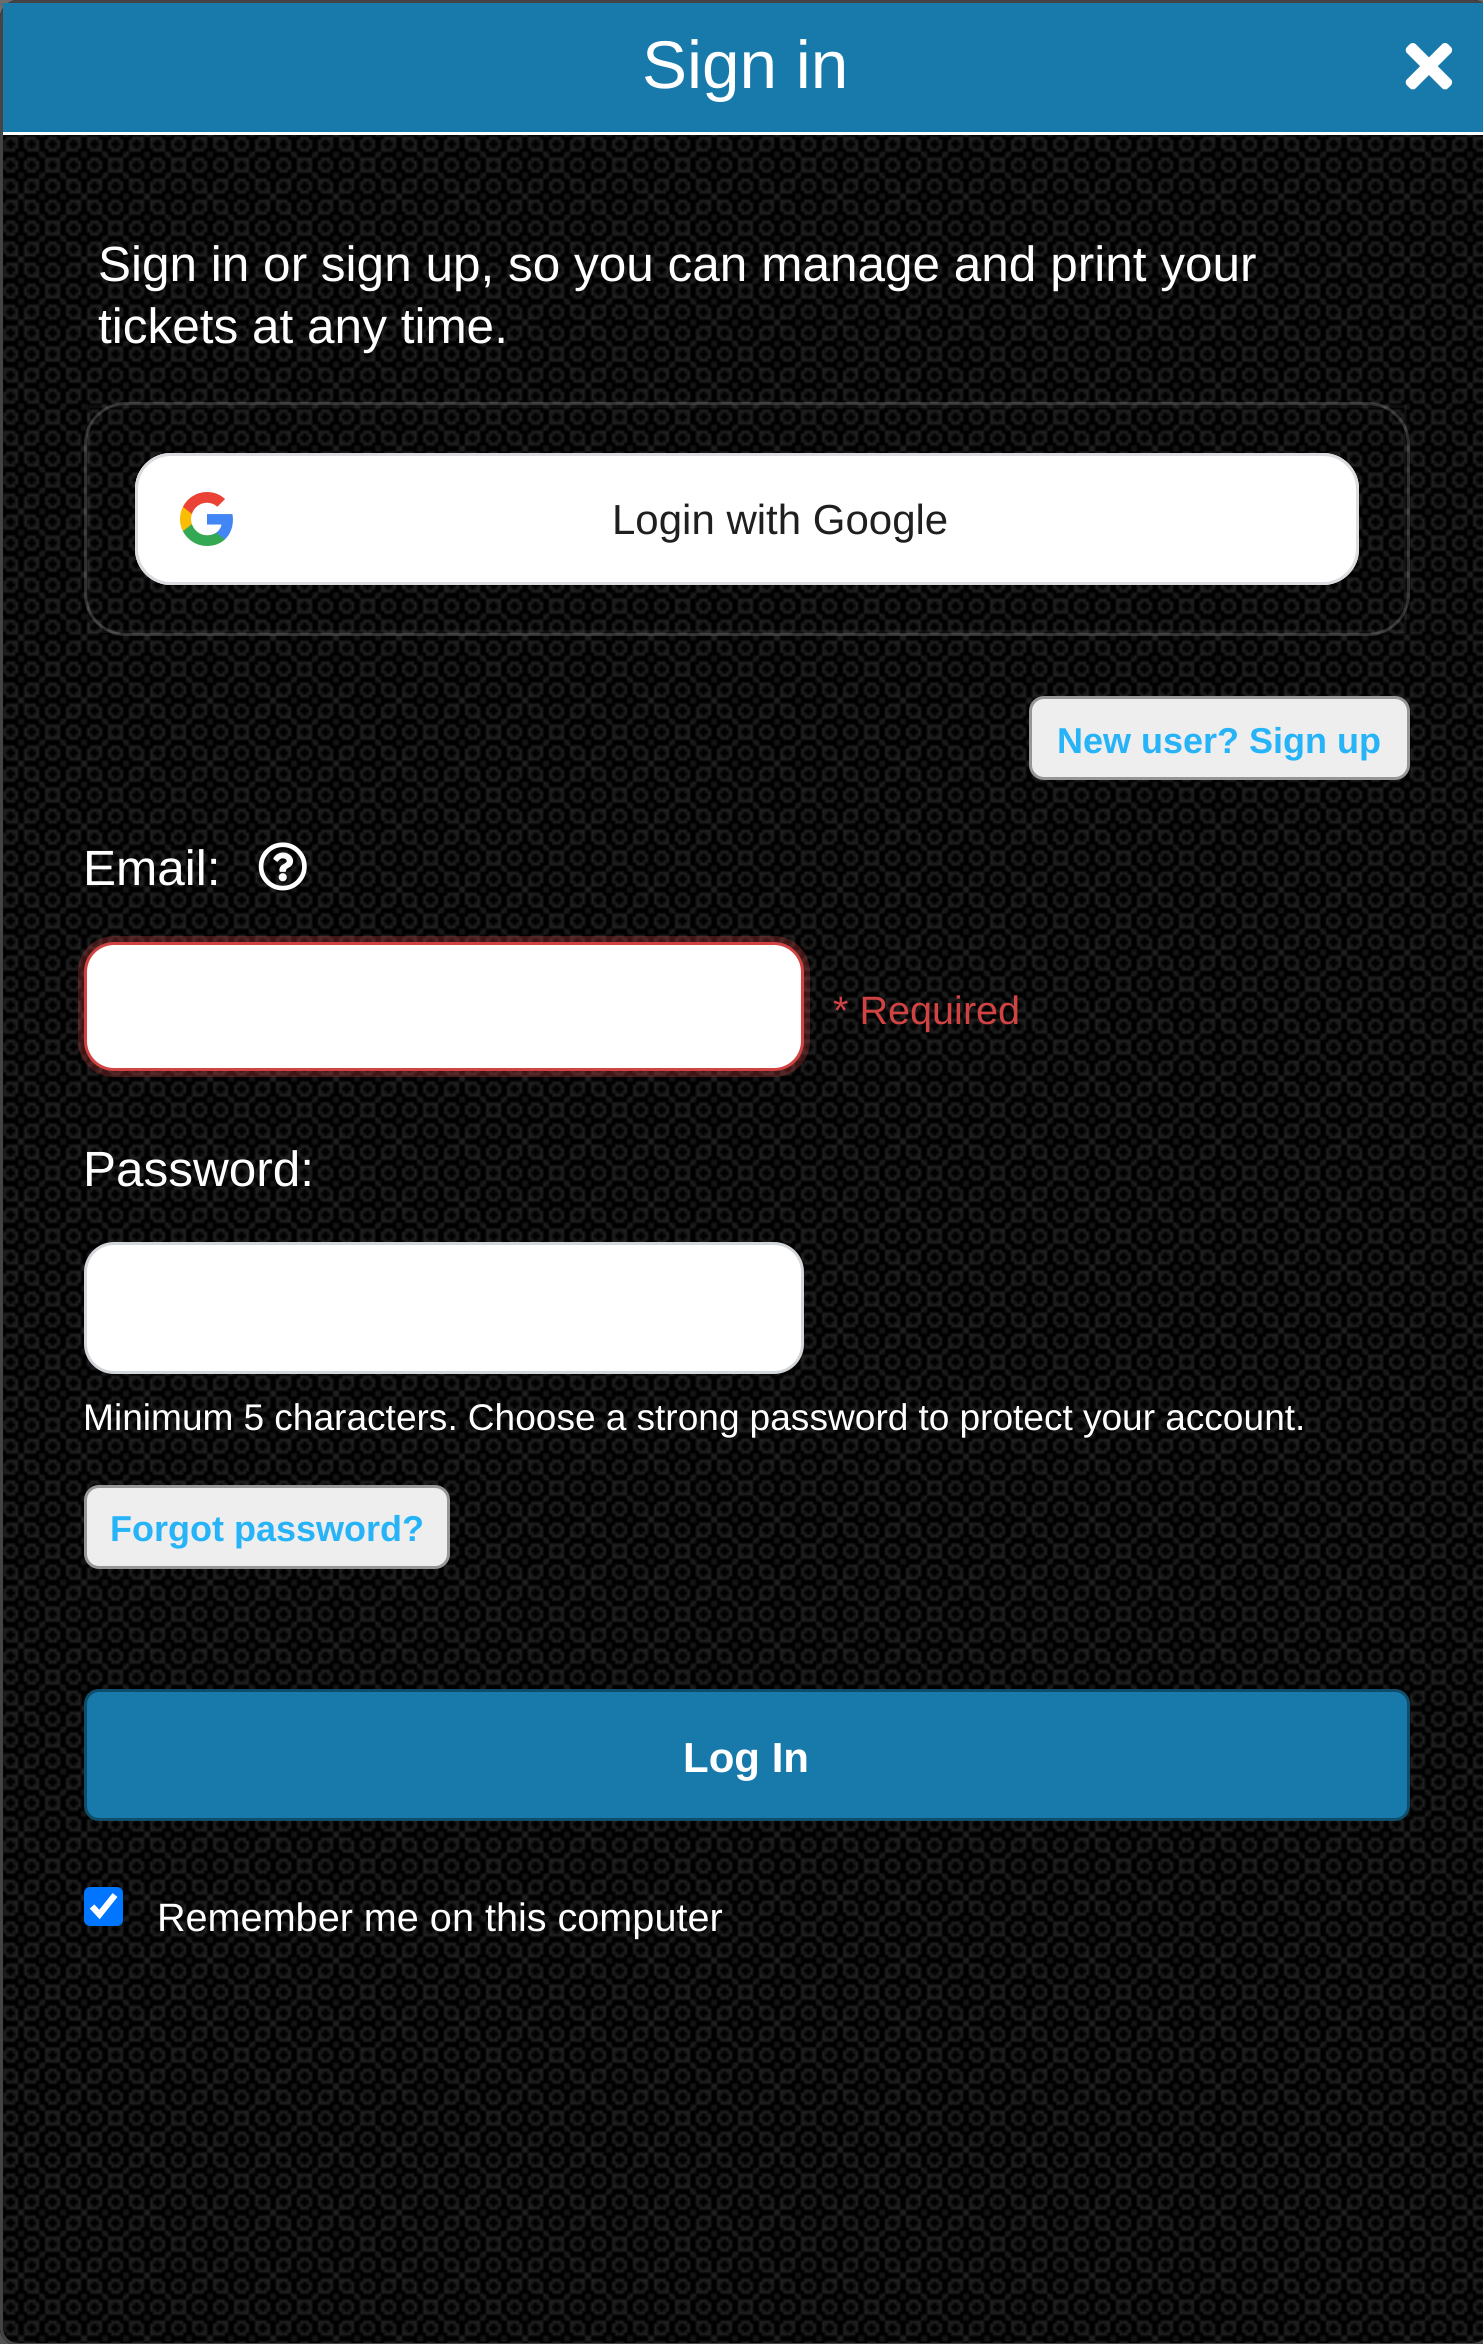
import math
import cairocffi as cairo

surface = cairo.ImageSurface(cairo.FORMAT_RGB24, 1483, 2344)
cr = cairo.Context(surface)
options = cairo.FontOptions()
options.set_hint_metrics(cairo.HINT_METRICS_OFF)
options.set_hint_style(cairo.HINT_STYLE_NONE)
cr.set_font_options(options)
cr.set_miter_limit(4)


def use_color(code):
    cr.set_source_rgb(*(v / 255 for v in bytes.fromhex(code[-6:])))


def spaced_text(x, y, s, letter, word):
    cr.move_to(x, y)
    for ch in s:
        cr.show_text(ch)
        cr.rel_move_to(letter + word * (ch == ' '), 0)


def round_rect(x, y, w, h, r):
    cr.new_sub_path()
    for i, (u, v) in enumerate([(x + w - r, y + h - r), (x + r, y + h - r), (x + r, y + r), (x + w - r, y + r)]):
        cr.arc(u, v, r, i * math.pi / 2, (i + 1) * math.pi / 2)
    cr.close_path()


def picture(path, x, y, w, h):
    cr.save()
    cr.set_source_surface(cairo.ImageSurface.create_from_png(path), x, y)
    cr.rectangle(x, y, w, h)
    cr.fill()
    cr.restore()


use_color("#ffffff")
cr.paint()
picture("img1.png", 0, 0, 1483, 2344)
picture("img2.png", 0, 0, 1483, 2344)
round_rect(1.5, 1.5, 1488, 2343, 16.5)
use_color("#444444")
cr.set_line_width(3)
cr.stroke()
use_color("#177aaa")
cr.rectangle(3, 3, 1480, 129)
cr.fill()
use_color("#ffffff")
cr.rectangle(3, 132, 1480, 3)
cr.fill()
cr.select_font_face("Liberation Sans")
cr.set_font_size(67.5)
cr.move_to(642, 88)
cr.show_text("Sign in")
picture("img3.png", 1405, 43, 48, 47)
cr.set_font_size(49.5)
cr.move_to(98, 281)
cr.show_text("Sign in or sign up, so you can manage and print your")
cr.move_to(98, 343)
cr.show_text("tickets at any time.")
cr.rectangle(88.5, 406.5, 1317, 225)
cr.set_source_rgba(1, 1, 1, 0.05)
cr.stroke()
round_rect(85.5, 403.5, 1323, 231, 40.5)
cr.set_source_rgba(1, 1, 1, 0.18)
cr.stroke()
use_color("#ffffff")
round_rect(135, 453, 1224, 132, 36)
cr.fill()
picture("img4.png", 180, 492, 53, 54)
round_rect(136.5, 454.5, 1221, 129, 34.5)
use_color("#dadce0")
cr.stroke()
cr.set_font_size(42)
use_color("#1f1f1f")
cr.move_to(612, 534)
cr.show_text("Login with Google")
use_color("#eeeeee")
round_rect(1030.5, 697.5, 378, 81, 13.5)
cr.fill_preserve()
use_color("#969696")
cr.stroke()
cr.select_font_face("Liberation Sans", cairo.FONT_SLANT_NORMAL, cairo.FONT_WEIGHT_BOLD)
cr.set_font_size(36)
use_color("#26b3f7")
cr.move_to(1057, 753)
cr.show_text("New user? Sign up")
cr.select_font_face("Liberation Sans")
cr.set_font_size(49.5)
use_color("#ffffff")
cr.move_to(83, 885)
cr.show_text("Email:")
picture("img5.png", 258, 842, 49, 49)
round_rect(81.5, 939.5, 725, 134, 32.5)
cr.set_source_rgba(0.82, 0.263, 0.263, 0.3)
cr.set_line_width(7)
cr.stroke()
use_color("#ffffff")
round_rect(85.5, 943.5, 717, 126, 28.5)
cr.fill_preserve()
use_color("#d14343")
cr.set_line_width(3)
cr.stroke()
cr.set_font_size(39.6)
cr.move_to(833, 1024)
cr.show_text("* Required")
cr.set_font_size(49.5)
use_color("#ffffff")
cr.move_to(83, 1186)
cr.show_text("Password:")
round_rect(85.5, 1243.5, 717, 129, 28.5)
cr.fill_preserve()
use_color("#d3d6da")
cr.stroke()
cr.set_font_size(37.1)
use_color("#ffffff")
spaced_text(83, 1430, "Minimum 5 characters. Choose a strong password to protect your account.", 0, -0.25)
use_color("#eeeeee")
round_rect(85.5, 1486.5, 363, 81, 13.5)
cr.fill_preserve()
use_color("#969696")
cr.stroke()
cr.select_font_face("Liberation Sans", cairo.FONT_SLANT_NORMAL, cairo.FONT_WEIGHT_BOLD)
cr.set_font_size(36)
use_color("#26b3f7")
cr.move_to(110, 1541)
cr.show_text("Forgot password?")
use_color("#177aaa")
round_rect(85.5, 1690.5, 1323, 129, 13.5)
cr.fill_preserve()
use_color("#0f4d6a")
cr.stroke()
cr.set_font_size(42)
use_color("#ffffff")
cr.move_to(683, 1772)
cr.show_text("Log In")
use_color("#0075ff")
round_rect(84, 1887, 39, 39, 6)
cr.fill()
cr.new_path()
cr.move_to(92, 1906.5)
cr.line_to(99.5, 1914.5)
cr.line_to(115, 1895)
use_color("#ffffff")
cr.set_line_width(6.2)
cr.stroke()
cr.select_font_face("Liberation Sans")
cr.set_font_size(39.6)
cr.move_to(157, 1931)
cr.show_text("Remember me on this computer")
surface.write_to_png("result.png")
